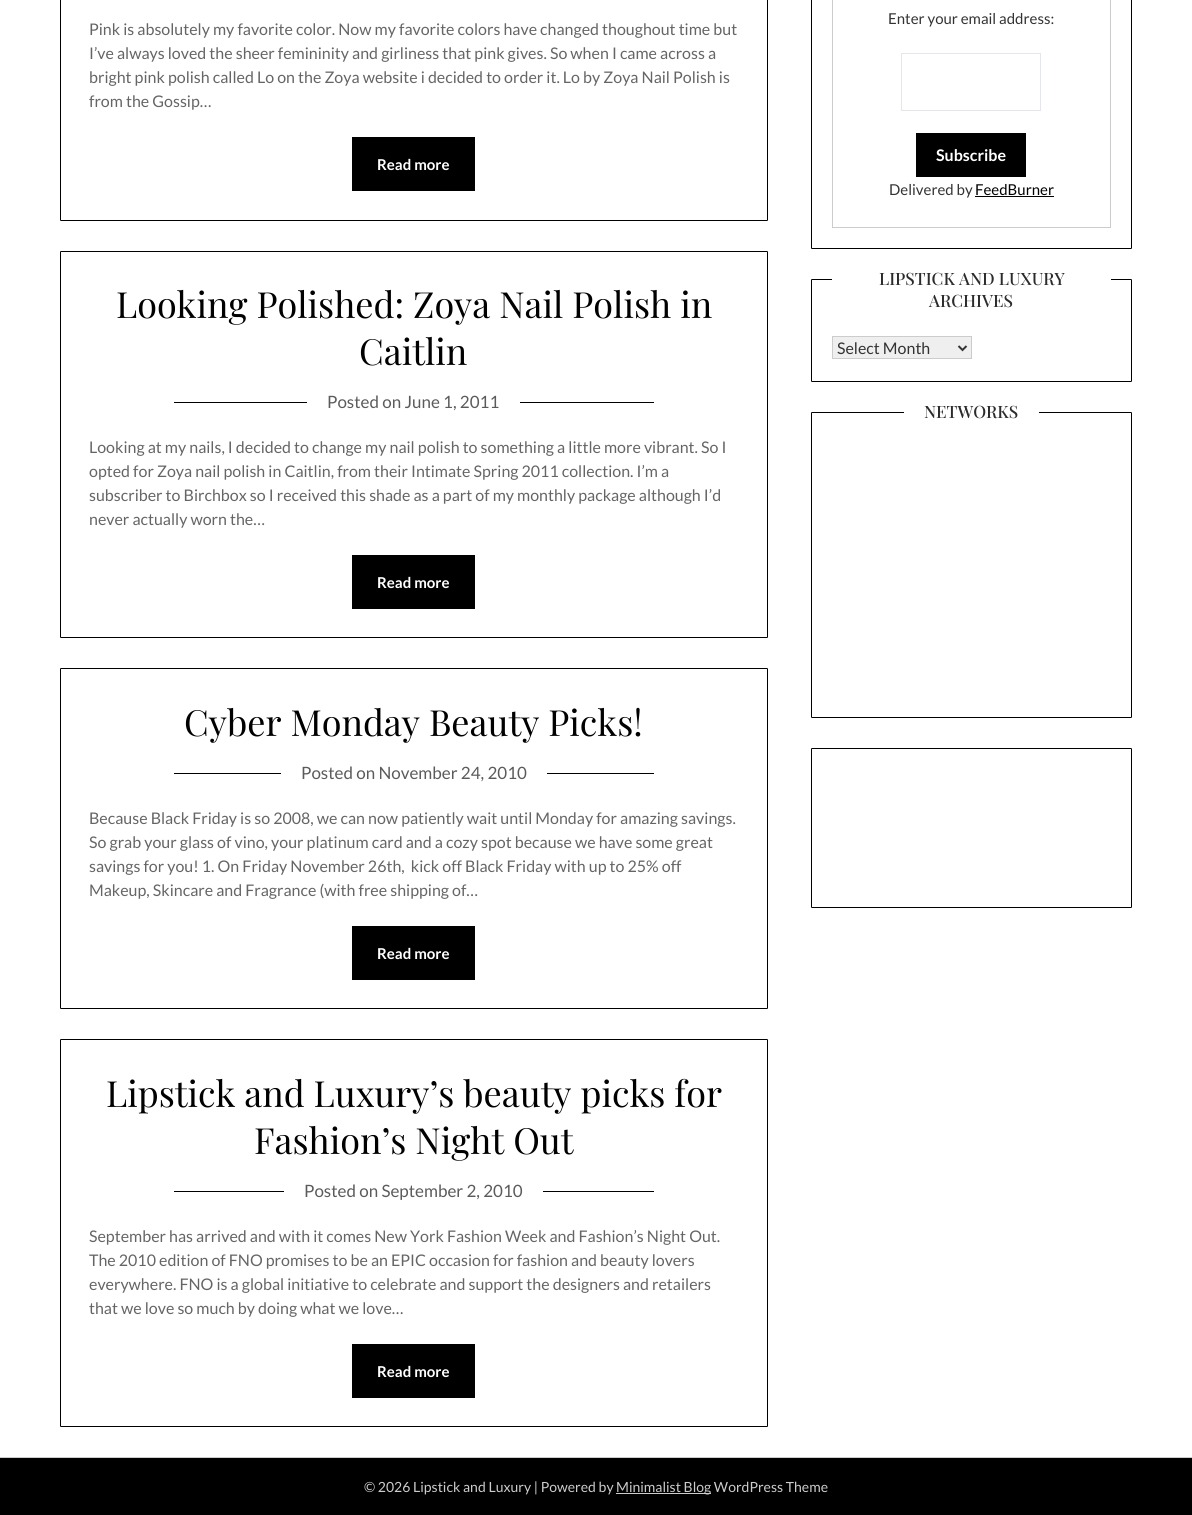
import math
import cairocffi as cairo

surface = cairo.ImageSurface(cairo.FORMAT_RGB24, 1192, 1515)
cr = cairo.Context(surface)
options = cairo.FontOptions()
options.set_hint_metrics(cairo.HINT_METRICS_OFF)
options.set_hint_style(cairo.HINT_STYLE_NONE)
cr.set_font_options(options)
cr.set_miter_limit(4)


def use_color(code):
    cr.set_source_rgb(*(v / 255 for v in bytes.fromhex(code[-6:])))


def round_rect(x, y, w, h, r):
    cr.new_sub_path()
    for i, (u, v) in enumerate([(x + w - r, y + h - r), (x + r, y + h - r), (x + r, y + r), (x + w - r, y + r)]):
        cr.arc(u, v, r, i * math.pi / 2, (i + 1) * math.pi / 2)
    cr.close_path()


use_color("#ffffff")
cr.paint()
round_rect(60.5, -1.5, 707, 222, 0.5)
use_color("#000000")
cr.set_line_width(1)
cr.stroke()
cr.select_font_face("Lato")
cr.set_font_size(16)
use_color("#656565")
cr.move_to(89, 35)
cr.show_text("Pink is absolutely my favorite color. Now my favorite colors have changed thoughout time but")
cr.move_to(89, 59)
cr.show_text("I’ve always loved the sheer femininity and girliness that pink gives. So when I came across a")
cr.move_to(89, 83)
cr.show_text("bright pink polish called Lo on the Zoya website i decided to order it. Lo by Zoya Nail Polish is")
cr.move_to(89, 107)
cr.show_text("from the Gossip…")
use_color("#000000")
cr.rectangle(352, 137, 123, 54)
cr.fill()
cr.select_font_face("Lato", cairo.FONT_SLANT_NORMAL, cairo.FONT_WEIGHT_BOLD)
cr.set_font_size(15)
use_color("#ffffff")
cr.move_to(377, 170)
cr.show_text("Read more")
round_rect(60.5, 251.5, 707, 386, 0.5)
use_color("#000000")
cr.stroke()
cr.select_font_face("Playfair Display")
cr.set_font_size(36)
cr.move_to(116, 318)
cr.show_text("Looking Polished: Zoya Nail Polish in")
cr.move_to(359, 365)
cr.show_text("Caitlin")
cr.rectangle(174, 402, 480, 1)
cr.fill()
use_color("#ffffff")
cr.rectangle(307, 402, 213, 1)
cr.fill()
cr.select_font_face("Lato")
cr.set_font_size(17)
use_color("#5b5b5b")
cr.move_to(327, 408)
cr.show_text("Posted on June 1, 2011")
cr.set_font_size(16)
use_color("#656565")
cr.move_to(89, 453)
cr.show_text("Looking at my nails, I decided to change my nail polish to something a little more vibrant. So I")
cr.move_to(89, 477)
cr.show_text("opted for Zoya nail polish in Caitlin, from their Intimate Spring 2011 collection. I’m a")
cr.move_to(89, 501)
cr.show_text("subscriber to Birchbox so I received this shade as a part of my monthly package although I’d")
cr.move_to(89, 525)
cr.show_text("never actually worn the…")
use_color("#000000")
cr.rectangle(352, 555, 123, 54)
cr.fill()
cr.select_font_face("Lato", cairo.FONT_SLANT_NORMAL, cairo.FONT_WEIGHT_BOLD)
cr.set_font_size(15)
use_color("#ffffff")
cr.move_to(377, 588)
cr.show_text("Read more")
round_rect(60.5, 668.5, 707, 340, 0.5)
use_color("#000000")
cr.stroke()
cr.select_font_face("Playfair Display")
cr.set_font_size(36)
cr.move_to(184, 736)
cr.show_text("Cyber Monday Beauty Picks!")
cr.rectangle(174, 773, 480, 1)
cr.fill()
use_color("#ffffff")
cr.rectangle(281, 773, 266, 1)
cr.fill()
cr.select_font_face("Lato")
cr.set_font_size(17)
use_color("#5b5b5b")
cr.move_to(301, 779)
cr.show_text("Posted on November 24, 2010")
cr.set_font_size(16)
use_color("#656565")
cr.move_to(89, 824)
cr.show_text("Because Black Friday is so 2008, we can now patiently wait until Monday for amazing savings.")
cr.move_to(89, 848)
cr.show_text("So grab your glass of vino, your platinum card and a cozy spot because we have some great")
cr.move_to(89, 872)
cr.show_text("savings for you! 1. On Friday November 26th,  kick off Black Friday with up to 25% off")
cr.move_to(89, 896)
cr.show_text("Makeup, Skincare and Fragrance (with free shipping of…")
use_color("#000000")
cr.rectangle(352, 926, 123, 54)
cr.fill()
cr.select_font_face("Lato", cairo.FONT_SLANT_NORMAL, cairo.FONT_WEIGHT_BOLD)
cr.set_font_size(15)
use_color("#ffffff")
cr.move_to(377, 959)
cr.show_text("Read more")
round_rect(60.5, 1039.5, 707, 387, 0.5)
use_color("#000000")
cr.stroke()
cr.select_font_face("Playfair Display")
cr.set_font_size(36)
cr.move_to(106, 1107)
cr.show_text("Lipstick and Luxury’s beauty picks for")
cr.move_to(254, 1154)
cr.show_text("Fashion’s Night Out")
cr.rectangle(174, 1191, 480, 1)
cr.fill()
use_color("#ffffff")
cr.rectangle(284, 1191, 259, 1)
cr.fill()
cr.select_font_face("Lato")
cr.set_font_size(17)
use_color("#5b5b5b")
cr.move_to(304, 1197)
cr.show_text("Posted on September 2, 2010")
cr.set_font_size(16)
use_color("#656565")
cr.move_to(89, 1242)
cr.show_text("September has arrived and with it comes New York Fashion Week and Fashion’s Night Out.")
cr.move_to(89, 1266)
cr.show_text("The 2010 edition of FNO promises to be an EPIC occasion for fashion and beauty lovers")
cr.move_to(89, 1290)
cr.show_text("everywhere. FNO is a global initiative to celebrate and support the designers and retailers")
cr.move_to(89, 1314)
cr.show_text("that we love so much by doing what we love…")
use_color("#000000")
cr.rectangle(352, 1344, 123, 54)
cr.fill()
cr.select_font_face("Lato", cairo.FONT_SLANT_NORMAL, cairo.FONT_WEIGHT_BOLD)
cr.set_font_size(15)
use_color("#ffffff")
cr.move_to(377, 1377)
cr.show_text("Read more")
round_rect(811.5, -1.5, 320, 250, 0.5)
use_color("#000000")
cr.stroke()
cr.rectangle(832.5, -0.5, 278, 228)
use_color("#cccccc")
cr.stroke()
cr.select_font_face("Lato")
use_color("#333333")
cr.move_to(888, 24)
cr.show_text("Enter your email address:")
cr.rectangle(901.5, 53.5, 139, 57)
use_color("#e5e6e9")
cr.stroke()
use_color("#000000")
cr.rectangle(916, 133, 110, 44)
cr.fill()
cr.select_font_face("Lato", cairo.FONT_SLANT_NORMAL, cairo.FONT_WEIGHT_BOLD)
cr.set_font_size(16)
use_color("#ffffff")
cr.move_to(936, 161)
cr.show_text("Subscribe")
cr.select_font_face("Lato")
cr.set_font_size(15)
use_color("#333333")
cr.move_to(889, 195)
cr.show_text("Delivered by")
use_color("#000000")
cr.move_to(975, 195)
cr.show_text("FeedBurner")
cr.rectangle(975, 196, 79, 1)
cr.fill()
round_rect(811.5, 279.5, 320, 102, 0.5)
cr.stroke()
use_color("#ffffff")
cr.rectangle(832, 279, 279, 1)
cr.fill()
cr.select_font_face("Playfair Display Medium")
cr.set_font_size(17)
use_color("#2b2b2b")
cr.move_to(879, 285)
cr.show_text("LIPSTICK AND LUXURY")
cr.move_to(929, 307)
cr.show_text("ARCHIVES")
use_color("#efefef")
cr.rectangle(832.5, 336.5, 139, 22)
cr.fill_preserve()
use_color("#cccccc")
cr.stroke()
cr.new_path()
cr.move_to(958.5, 346)
cr.line_to(962.5, 350)
cr.line_to(966.5, 346)
use_color("#333333")
cr.set_line_width(2)
cr.stroke()
cr.select_font_face("Lato")
cr.set_font_size(16)
cr.move_to(837, 354)
cr.show_text("Select Month")
round_rect(811.5, 412.5, 320, 305, 0.5)
use_color("#000000")
cr.set_line_width(1)
cr.stroke()
use_color("#ffffff")
cr.rectangle(904, 412, 135, 1)
cr.fill()
cr.select_font_face("Playfair Display Medium")
cr.set_font_size(17)
use_color("#2b2b2b")
cr.move_to(924, 418)
cr.show_text("NETWORKS")
round_rect(811.5, 748.5, 320, 159, 0.5)
use_color("#000000")
cr.stroke()
cr.rectangle(0, 1458, 1192, 57)
cr.fill()
use_color("#cccccc")
cr.rectangle(0, 1457, 1192, 1)
cr.fill()
cr.select_font_face("Lato")
cr.set_font_size(14)
cr.move_to(364, 1492)
cr.show_text("© 2026 Lipstick and Luxury | Powered by")
cr.rectangle(616, 1493, 95, 1)
cr.fill()
cr.move_to(616, 1492)
cr.show_text("Minimalist Blog WordPress Theme")
surface.write_to_png("result.png")
